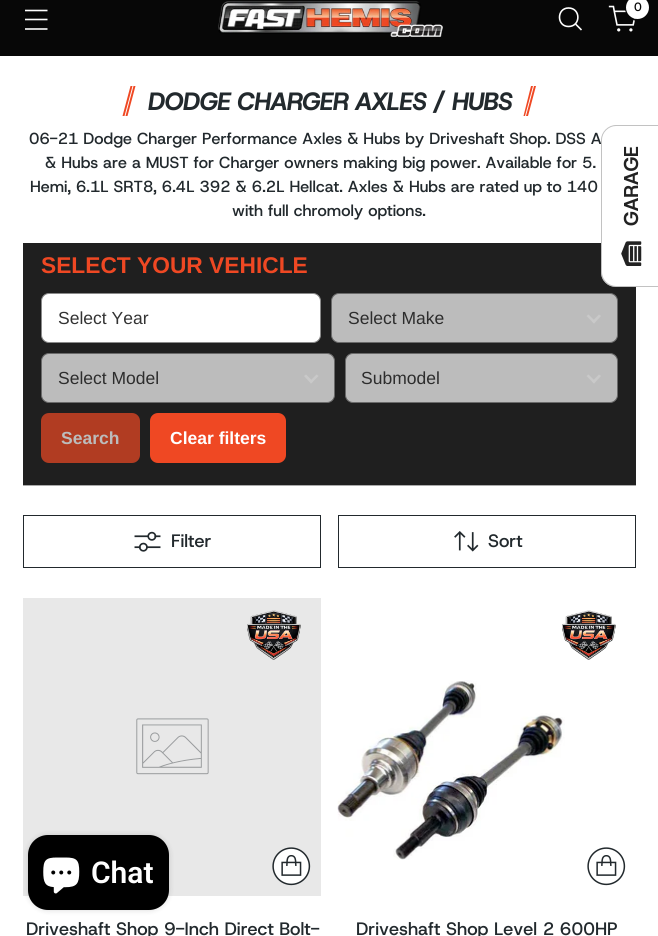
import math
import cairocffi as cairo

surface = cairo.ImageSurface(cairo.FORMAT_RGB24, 658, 936)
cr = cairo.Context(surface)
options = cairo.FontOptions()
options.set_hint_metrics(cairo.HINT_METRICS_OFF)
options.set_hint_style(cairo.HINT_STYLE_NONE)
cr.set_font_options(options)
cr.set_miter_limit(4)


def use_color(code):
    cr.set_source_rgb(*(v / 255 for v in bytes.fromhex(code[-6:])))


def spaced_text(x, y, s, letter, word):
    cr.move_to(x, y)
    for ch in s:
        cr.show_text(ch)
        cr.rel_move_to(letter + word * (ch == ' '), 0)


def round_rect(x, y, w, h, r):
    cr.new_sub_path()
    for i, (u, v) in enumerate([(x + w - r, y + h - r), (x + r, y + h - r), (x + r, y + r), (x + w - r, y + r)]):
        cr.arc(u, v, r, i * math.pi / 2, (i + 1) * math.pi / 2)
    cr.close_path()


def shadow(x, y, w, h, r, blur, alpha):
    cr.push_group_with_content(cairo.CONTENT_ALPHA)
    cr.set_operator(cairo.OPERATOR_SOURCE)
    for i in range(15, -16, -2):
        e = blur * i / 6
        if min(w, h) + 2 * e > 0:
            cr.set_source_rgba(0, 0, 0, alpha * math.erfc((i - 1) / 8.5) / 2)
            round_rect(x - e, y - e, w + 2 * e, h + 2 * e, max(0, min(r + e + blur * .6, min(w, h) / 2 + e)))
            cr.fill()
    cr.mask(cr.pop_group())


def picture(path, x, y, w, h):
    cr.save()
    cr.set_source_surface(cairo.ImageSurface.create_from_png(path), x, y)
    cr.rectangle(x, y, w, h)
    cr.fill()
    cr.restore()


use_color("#ffffff")
cr.paint()
use_color("#070707")
cr.rectangle(0, 0, 658, 56)
cr.fill()
picture("img1.png", 218, 1, 225, 36)
cr.new_path()
cr.move_to(568.5, 26.5)
cr.curve_to(581, 26.5, 581, 8, 568.5, 8)
cr.curve_to(556.5, 8, 556.5, 26.5, 568.5, 26.5)
cr.close_path()
use_color("#ffffff")
cr.set_line_width(1.6)
cr.set_line_cap(cairo.LINE_CAP_ROUND)
cr.stroke()
cr.new_path()
cr.move_to(575.5, 24)
cr.line_to(581.5, 30)
cr.set_line_cap(cairo.LINE_CAP_BUTT)
cr.stroke()
picture("img2.png", 608, 5, 28, 27)
cr.arc(638, 8, 12, 0, 2 * math.pi)
use_color("#070707")
cr.set_line_width(2)
cr.stroke()
use_color("#ffffff")
cr.arc(637.5, 7.5, 11.5, 0, 2 * math.pi)
cr.fill()
cr.select_font_face("Host Grotesk Medium")
cr.set_font_size(12)
use_color("#070707")
cr.move_to(634, 11)
cr.show_text("0")
cr.new_path()
cr.move_to(25, 19.5)
cr.line_to(47.5, 19.5)
cr.move_to(25, 10.5)
cr.line_to(47.5, 10.5)
cr.move_to(25, 29)
cr.line_to(47.5, 29)
use_color("#ffffff")
cr.set_line_width(1.6)
cr.stroke()
use_color("#ef4823")
cr.new_path()
cr.move_to(130.5, 86)
cr.line_to(132.5, 86)
cr.line_to(124.5, 116)
cr.line_to(122.5, 116)
cr.close_path()
cr.fill()
cr.new_path()
cr.move_to(135.5, 86)
cr.line_to(127.5, 116)
cr.line_to(125.5, 116)
cr.line_to(133.5, 86)
cr.close_path()
cr.fill()
cr.select_font_face("Host Grotesk ExtraBold", cairo.FONT_SLANT_ITALIC)
cr.set_font_size(25)
use_color("#22292d")
spaced_text(148, 110, "DODGE CHARGER AXLES / HUBS", -0.6, 0)
use_color("#ef4823")
cr.new_path()
cr.move_to(531, 86)
cr.line_to(533, 86)
cr.line_to(525, 116)
cr.line_to(523.5, 116)
cr.close_path()
cr.fill()
cr.new_path()
cr.move_to(536, 86)
cr.line_to(528, 116)
cr.line_to(526, 116)
cr.line_to(534, 86)
cr.close_path()
cr.fill()
cr.select_font_face("Host Grotesk Medium")
cr.set_font_size(16)
use_color("#22292d")
cr.move_to(29, 144)
cr.show_text("06-21 Dodge Charger Performance Axles & Hubs by Driveshaft Shop. DSS A")
cr.move_to(45, 168)
cr.show_text("& Hubs are a MUST for Charger owners making big power. Available for 5.")
cr.move_to(30, 192)
cr.show_text("Hemi, 6.1L SRT8, 6.4L 392 & 6.2L Hellcat. Axles & Hubs are rated up to 140")
cr.move_to(232, 216)
cr.show_text("with full chromoly options.")
use_color("#1f1f1f")
cr.rectangle(23, 243, 613, 242)
cr.fill()
cr.select_font_face("Liberation Sans", cairo.FONT_SLANT_NORMAL, cairo.FONT_WEIGHT_BOLD)
cr.set_font_size(22.75)
use_color("#ef4823")
cr.move_to(41, 273)
cr.show_text("SELECT YOUR VEHICLE")
use_color("#ffffff")
round_rect(41.5, 293.5, 279, 49, 7.5)
cr.fill_preserve()
use_color("#8a8a8a")
cr.set_line_width(1)
cr.stroke()
cr.select_font_face("Liberation Sans")
cr.set_font_size(17.5)
use_color("#333333")
cr.move_to(58, 324)
cr.show_text("Select Year")
use_color("#4a4a4a")
cr.new_path()
cr.move_to(599, 314.5)
cr.line_to(601, 316)
cr.line_to(594, 323.5)
cr.line_to(592, 321.5)
cr.close_path()
cr.fill()
cr.new_path()
cr.move_to(588.5, 314.5)
cr.line_to(595.5, 321.5)
cr.line_to(594, 323.5)
cr.line_to(586.5, 316)
cr.close_path()
cr.fill()
cr.set_source_rgba(1, 1, 1, 0.7)
round_rect(331.5, 293.5, 286, 49, 7.5)
cr.fill_preserve()
use_color("#6a6a6a")
cr.stroke()
use_color("#2d2d2d")
cr.move_to(348, 324)
cr.show_text("Select Make")
use_color("#4a4a4a")
cr.new_path()
cr.move_to(316.5, 374.5)
cr.line_to(318.5, 376)
cr.line_to(311, 383.5)
cr.line_to(309.5, 381.5)
cr.close_path()
cr.fill()
cr.new_path()
cr.move_to(306, 374.5)
cr.line_to(313, 381.5)
cr.line_to(311, 383.5)
cr.line_to(304, 376)
cr.close_path()
cr.fill()
cr.set_source_rgba(1, 1, 1, 0.7)
round_rect(41.5, 353.5, 293, 49, 7.5)
cr.fill_preserve()
use_color("#6a6a6a")
cr.stroke()
use_color("#2d2d2d")
cr.move_to(58, 384)
cr.show_text("Select Model")
use_color("#4a4a4a")
cr.new_path()
cr.move_to(599, 374.5)
cr.line_to(601, 376)
cr.line_to(594, 383.5)
cr.line_to(592, 381.5)
cr.close_path()
cr.fill()
cr.new_path()
cr.move_to(588.5, 374.5)
cr.line_to(595.5, 381.5)
cr.line_to(594, 383.5)
cr.line_to(586.5, 376)
cr.close_path()
cr.fill()
cr.set_source_rgba(1, 1, 1, 0.7)
round_rect(345.5, 353.5, 272, 49, 7.5)
cr.fill_preserve()
use_color("#6a6a6a")
cr.stroke()
use_color("#2d2d2d")
cr.move_to(361, 384)
cr.show_text("Submodel")
use_color("#b13c22")
round_rect(41, 413, 99, 50, 8)
cr.fill()
cr.select_font_face("Liberation Sans", cairo.FONT_SLANT_NORMAL, cairo.FONT_WEIGHT_BOLD)
use_color("#bcbcbc")
cr.move_to(61, 444)
cr.show_text("Search")
use_color("#ef4823")
round_rect(150, 413, 136, 50, 8)
cr.fill()
use_color("#ffffff")
cr.move_to(170, 444)
cr.show_text("Clear filters")
use_color("#aaaaaa")
cr.rectangle(23, 485, 613, 1)
cr.fill()
cr.rectangle(23.5, 515.5, 297, 52)
use_color("#22292d")
cr.stroke()
picture("img3.png", 134, 531, 27, 21)
cr.select_font_face("Host Grotesk Medium")
cr.set_font_size(18)
cr.move_to(171, 547)
cr.show_text("Filter")
cr.rectangle(338.5, 515.5, 297, 52)
cr.stroke()
picture("img4.png", 454, 531, 25, 21)
cr.move_to(488, 547)
cr.show_text("Sort")
use_color("#e8e8e8")
cr.rectangle(23, 598, 298, 298)
cr.fill()
picture("img5.png", 136, 718, 73, 57)
picture("img6.png", 247, 610, 54, 50)
picture("img7.png", 272, 847, 39, 39)
use_color("#22292d")
cr.move_to(26, 935)
cr.show_text("Driveshaft Shop 9-Inch Direct Bolt-")
picture("img8.png", 562, 610, 54, 50)
picture("img9.png", 337, 680, 228, 180)
picture("img10.png", 587, 847, 39, 39)
cr.move_to(356, 935)
cr.show_text("Driveshaft Shop Level 2 600HP")
use_color("#ffffff")
cr.new_path()
cr.move_to(601, 272)
cr.line_to(601, 140)
cr.curve_to(601, 132, 608, 125, 616, 125)
cr.line_to(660, 125)
cr.line_to(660, 287)
cr.line_to(616, 287)
cr.curve_to(608, 287, 601, 281, 601, 272)
cr.close_path()
cr.fill()
cr.set_source_rgba(0.525, 0.525, 0.525, 0.5)
cr.set_fill_rule(cairo.FILL_RULE_EVEN_ODD)
cr.new_path()
cr.move_to(601, 272)
cr.line_to(601, 140)
cr.curve_to(601, 132, 608, 125, 616, 125)
cr.line_to(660, 125)
cr.line_to(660, 287)
cr.line_to(616, 287)
cr.curve_to(608, 287, 601, 281, 601, 272)
cr.close_path()
cr.move_to(602, 272)
cr.line_to(602, 140)
cr.curve_to(602, 132, 609, 126, 616, 126)
cr.line_to(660, 126)
cr.line_to(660, 286)
cr.line_to(616, 286)
cr.curve_to(609, 286, 602, 280, 602, 272)
cr.close_path()
cr.fill()
cr.select_font_face("Host Grotesk", cairo.FONT_SLANT_NORMAL, cairo.FONT_WEIGHT_BOLD)
cr.set_font_size(20)
use_color("#222222")
cr.save()
cr.translate(638, 226)
cr.rotate(-90 * math.pi / 180)
cr.move_to(0, 0)
cr.show_text("GARAGE")
cr.restore()
picture("img11.png", 621, 241, 21, 25)
use_color("#000000")
shadow(28, 835, 141, 75, 20, 3, 0.15)
use_color("#000000")
round_rect(28, 835, 141, 75, 20)
cr.fill()
picture("img12.png", 43, 857, 37, 37)
cr.select_font_face("Roboto SemiBold")
cr.set_font_size(30)
use_color("#ffffff")
cr.move_to(91, 883)
cr.show_text("Chat")
surface.write_to_png("result.png")
